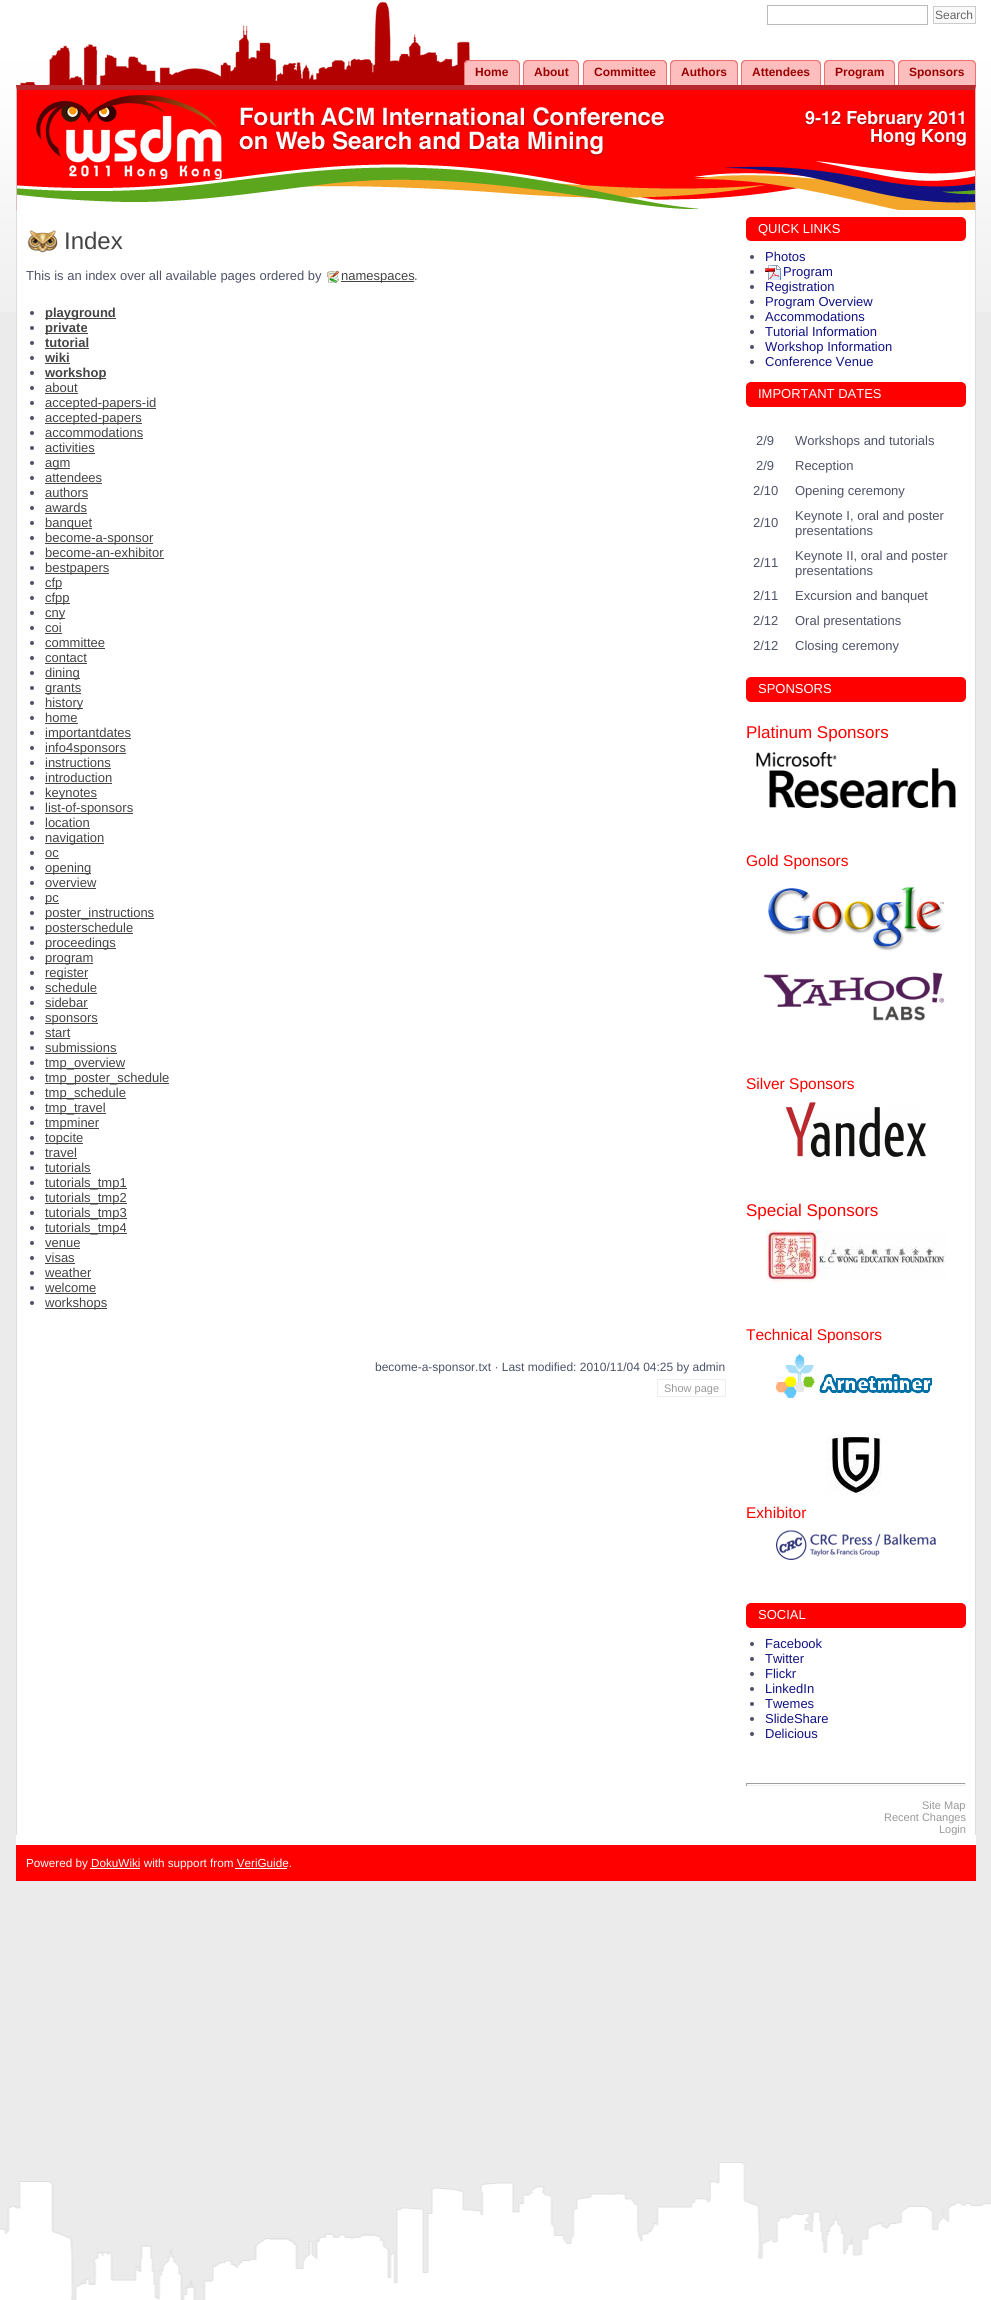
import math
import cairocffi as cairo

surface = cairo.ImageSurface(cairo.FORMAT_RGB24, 991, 2300)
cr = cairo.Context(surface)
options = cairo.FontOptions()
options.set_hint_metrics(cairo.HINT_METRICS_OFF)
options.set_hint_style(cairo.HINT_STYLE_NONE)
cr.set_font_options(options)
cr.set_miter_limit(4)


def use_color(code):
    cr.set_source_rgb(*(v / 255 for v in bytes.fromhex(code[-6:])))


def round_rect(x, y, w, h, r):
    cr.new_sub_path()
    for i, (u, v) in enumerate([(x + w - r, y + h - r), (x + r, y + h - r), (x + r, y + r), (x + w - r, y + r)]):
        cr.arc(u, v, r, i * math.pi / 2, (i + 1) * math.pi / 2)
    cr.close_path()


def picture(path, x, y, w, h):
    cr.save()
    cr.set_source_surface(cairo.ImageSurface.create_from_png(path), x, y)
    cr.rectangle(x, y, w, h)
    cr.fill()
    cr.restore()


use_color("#ebebeb")
cr.paint()
picture("img1.png", 0, 0, 991, 312)
use_color("#ffffff")
cr.rectangle(16, 108, 960, 1727)
cr.fill()
picture("img2.png", 20, 2, 450, 83)
cr.rectangle(767.5, 5.5, 160, 19)
use_color("#bbbbbb")
cr.set_line_width(1)
cr.stroke()
use_color("#fafafa")
cr.rectangle(933.5, 6.5, 42, 17)
cr.fill_preserve()
use_color("#cccccc")
cr.stroke()
cr.select_font_face("Liberation Sans")
cr.set_font_size(12)
use_color("#666666")
cr.move_to(935, 19)
cr.show_text("Search")
use_color("#ffbebe")
cr.new_path()
cr.move_to(469, 60)
cr.line_to(515, 60)
cr.curve_to(518, 60, 520, 62, 520, 65)
cr.line_to(520, 85)
cr.line_to(464, 85)
cr.line_to(464, 65)
cr.curve_to(464, 62, 466, 60, 469, 60)
cr.close_path()
cr.fill()
use_color("#ee716f")
cr.set_fill_rule(cairo.FILL_RULE_EVEN_ODD)
cr.new_path()
cr.move_to(469, 60)
cr.line_to(515, 60)
cr.curve_to(518, 60, 520, 62, 520, 65)
cr.line_to(520, 85)
cr.line_to(464, 85)
cr.line_to(464, 65)
cr.curve_to(464, 62, 466, 60, 469, 60)
cr.close_path()
cr.move_to(469, 61)
cr.line_to(515, 61)
cr.curve_to(517, 61, 519, 63, 519, 65)
cr.line_to(519, 85)
cr.line_to(465, 85)
cr.line_to(465, 65)
cr.curve_to(465, 63, 467, 61, 469, 61)
cr.close_path()
cr.fill()
cr.select_font_face("Liberation Sans", cairo.FONT_SLANT_NORMAL, cairo.FONT_WEIGHT_BOLD)
use_color("#9b0001")
cr.move_to(475, 76)
cr.show_text("Home")
use_color("#ffbebe")
cr.new_path()
cr.move_to(528, 60)
cr.line_to(574, 60)
cr.curve_to(577, 60, 579, 62, 579, 65)
cr.line_to(579, 85)
cr.line_to(523, 85)
cr.line_to(523, 65)
cr.curve_to(523, 62, 525, 60, 528, 60)
cr.close_path()
cr.fill()
use_color("#ee716f")
cr.new_path()
cr.move_to(528, 60)
cr.line_to(574, 60)
cr.curve_to(577, 60, 579, 62, 579, 65)
cr.line_to(579, 85)
cr.line_to(523, 85)
cr.line_to(523, 65)
cr.curve_to(523, 62, 525, 60, 528, 60)
cr.close_path()
cr.move_to(528, 61)
cr.line_to(574, 61)
cr.curve_to(576, 61, 578, 63, 578, 65)
cr.line_to(578, 85)
cr.line_to(524, 85)
cr.line_to(524, 65)
cr.curve_to(524, 63, 526, 61, 528, 61)
cr.close_path()
cr.fill()
use_color("#9b0001")
cr.move_to(534, 76)
cr.show_text("About")
use_color("#ffbebe")
cr.new_path()
cr.move_to(588, 60)
cr.line_to(662, 60)
cr.curve_to(665, 60, 667, 62, 667, 65)
cr.line_to(667, 85)
cr.line_to(583, 85)
cr.line_to(583, 65)
cr.curve_to(583, 62, 585, 60, 588, 60)
cr.close_path()
cr.fill()
use_color("#ee716f")
cr.new_path()
cr.move_to(588, 60)
cr.line_to(662, 60)
cr.curve_to(665, 60, 667, 62, 667, 65)
cr.line_to(667, 85)
cr.line_to(583, 85)
cr.line_to(583, 65)
cr.curve_to(583, 62, 585, 60, 588, 60)
cr.close_path()
cr.move_to(588, 61)
cr.line_to(662, 61)
cr.curve_to(664, 61, 666, 63, 666, 65)
cr.line_to(666, 85)
cr.line_to(584, 85)
cr.line_to(584, 65)
cr.curve_to(584, 63, 586, 61, 588, 61)
cr.close_path()
cr.fill()
use_color("#9b0001")
cr.move_to(594, 76)
cr.show_text("Committee")
use_color("#ffbebe")
cr.new_path()
cr.move_to(675, 60)
cr.line_to(733, 60)
cr.curve_to(736, 60, 738, 62, 738, 65)
cr.line_to(738, 85)
cr.line_to(670, 85)
cr.line_to(670, 65)
cr.curve_to(670, 62, 672, 60, 675, 60)
cr.close_path()
cr.fill()
use_color("#ee716f")
cr.new_path()
cr.move_to(675, 60)
cr.line_to(733, 60)
cr.curve_to(736, 60, 738, 62, 738, 65)
cr.line_to(738, 85)
cr.line_to(670, 85)
cr.line_to(670, 65)
cr.curve_to(670, 62, 672, 60, 675, 60)
cr.close_path()
cr.move_to(675, 61)
cr.line_to(733, 61)
cr.curve_to(735, 61, 737, 63, 737, 65)
cr.line_to(737, 85)
cr.line_to(671, 85)
cr.line_to(671, 65)
cr.curve_to(671, 63, 673, 61, 675, 61)
cr.close_path()
cr.fill()
use_color("#9b0001")
cr.move_to(681, 76)
cr.show_text("Authors")
use_color("#ffbebe")
cr.new_path()
cr.move_to(746, 60)
cr.line_to(816, 60)
cr.curve_to(819, 60, 821, 62, 821, 65)
cr.line_to(821, 85)
cr.line_to(741, 85)
cr.line_to(741, 65)
cr.curve_to(741, 62, 743, 60, 746, 60)
cr.close_path()
cr.fill()
use_color("#ee716f")
cr.new_path()
cr.move_to(746, 60)
cr.line_to(816, 60)
cr.curve_to(819, 60, 821, 62, 821, 65)
cr.line_to(821, 85)
cr.line_to(741, 85)
cr.line_to(741, 65)
cr.curve_to(741, 62, 743, 60, 746, 60)
cr.close_path()
cr.move_to(746, 61)
cr.line_to(816, 61)
cr.curve_to(818, 61, 820, 63, 820, 65)
cr.line_to(820, 85)
cr.line_to(742, 85)
cr.line_to(742, 65)
cr.curve_to(742, 63, 744, 61, 746, 61)
cr.close_path()
cr.fill()
use_color("#9b0001")
cr.move_to(752, 76)
cr.show_text("Attendees")
use_color("#ffbebe")
cr.new_path()
cr.move_to(829, 60)
cr.line_to(890, 60)
cr.curve_to(893, 60, 895, 62, 895, 65)
cr.line_to(895, 85)
cr.line_to(824, 85)
cr.line_to(824, 65)
cr.curve_to(824, 62, 826, 60, 829, 60)
cr.close_path()
cr.fill()
use_color("#ee716f")
cr.new_path()
cr.move_to(829, 60)
cr.line_to(890, 60)
cr.curve_to(893, 60, 895, 62, 895, 65)
cr.line_to(895, 85)
cr.line_to(824, 85)
cr.line_to(824, 65)
cr.curve_to(824, 62, 826, 60, 829, 60)
cr.close_path()
cr.move_to(829, 61)
cr.line_to(890, 61)
cr.curve_to(892, 61, 894, 63, 894, 65)
cr.line_to(894, 85)
cr.line_to(825, 85)
cr.line_to(825, 65)
cr.curve_to(825, 63, 827, 61, 829, 61)
cr.close_path()
cr.fill()
use_color("#9b0001")
cr.move_to(835, 76)
cr.show_text("Program")
use_color("#ffbebe")
cr.new_path()
cr.move_to(903, 60)
cr.line_to(971, 60)
cr.curve_to(974, 60, 976, 62, 976, 65)
cr.line_to(976, 85)
cr.line_to(898, 85)
cr.line_to(898, 65)
cr.curve_to(898, 62, 900, 60, 903, 60)
cr.close_path()
cr.fill()
use_color("#ee716f")
cr.new_path()
cr.move_to(903, 60)
cr.line_to(971, 60)
cr.curve_to(974, 60, 976, 62, 976, 65)
cr.line_to(976, 85)
cr.line_to(898, 85)
cr.line_to(898, 65)
cr.curve_to(898, 62, 900, 60, 903, 60)
cr.close_path()
cr.move_to(903, 61)
cr.line_to(971, 61)
cr.curve_to(973, 61, 975, 63, 975, 65)
cr.line_to(975, 85)
cr.line_to(899, 85)
cr.line_to(899, 65)
cr.curve_to(899, 63, 901, 61, 903, 61)
cr.close_path()
cr.fill()
use_color("#9b0001")
cr.move_to(909, 76)
cr.show_text("Sponsors")
use_color("#ff0000")
cr.rectangle(16, 85, 960, 115)
cr.fill()
picture("img3.png", 17, 95, 958, 115)
use_color("#b62a2f")
cr.set_fill_rule(cairo.FILL_RULE_WINDING)
cr.new_path()
cr.move_to(16, 85)
cr.line_to(976, 85)
cr.line_to(975, 90)
cr.line_to(17, 90)
cr.close_path()
cr.fill()
use_color("#dabebe")
cr.new_path()
cr.move_to(976, 85)
cr.line_to(976, 210)
cr.line_to(975, 210)
cr.line_to(975, 90)
cr.close_path()
cr.fill()
cr.new_path()
cr.move_to(16, 210)
cr.line_to(16, 85)
cr.line_to(17, 90)
cr.line_to(17, 210)
cr.close_path()
cr.fill()
use_color("#dddddd")
cr.rectangle(16, 210, 1, 1625)
cr.fill()
picture("img4.png", 27, 230, 31, 23)
cr.select_font_face("Liberation Sans")
cr.set_font_size(24)
use_color("#444444")
cr.move_to(64, 249)
cr.show_text("Index")
cr.set_font_size(13)
use_color("#4e5368")
cr.move_to(26, 280)
cr.show_text("This is an index over all available pages ordered by")
picture("img5.png", 327, 271, 12, 12)
use_color("#444444")
cr.rectangle(341, 281, 73, 1)
cr.fill()
cr.move_to(341, 280)
cr.show_text("namespaces")
use_color("#4e5368")
cr.move_to(414, 280)
cr.show_text(".")
cr.new_path()
cr.arc(32, 313, 2, 0, 2 * math.pi)
cr.fill()
use_color("#444444")
cr.rectangle(45, 318, 71, 1)
cr.fill()
cr.select_font_face("Liberation Sans", cairo.FONT_SLANT_NORMAL, cairo.FONT_WEIGHT_BOLD)
cr.move_to(45, 317)
cr.show_text("playground")
use_color("#4e5368")
cr.new_path()
cr.arc(32, 328, 2, 0, 2 * math.pi)
cr.fill()
use_color("#444444")
cr.rectangle(45, 333, 43, 1)
cr.fill()
cr.move_to(45, 332)
cr.show_text("private")
use_color("#4e5368")
cr.new_path()
cr.arc(32, 343, 2, 0, 2 * math.pi)
cr.fill()
use_color("#444444")
cr.move_to(45, 347)
cr.show_text("tutorial")
cr.rectangle(45, 348, 44, 1)
cr.fill()
use_color("#4e5368")
cr.arc(32, 358, 2, 0, 2 * math.pi)
cr.fill()
use_color("#444444")
cr.move_to(45, 362)
cr.show_text("wiki")
cr.rectangle(45, 363, 25, 1)
cr.fill()
use_color("#4e5368")
cr.arc(32, 373, 2, 0, 2 * math.pi)
cr.fill()
use_color("#444444")
cr.rectangle(45, 378, 61, 1)
cr.fill()
cr.move_to(45, 377)
cr.show_text("workshop")
use_color("#4e5368")
cr.new_path()
cr.arc(32, 388, 2, 0, 2 * math.pi)
cr.fill()
cr.select_font_face("Liberation Sans")
use_color("#444444")
cr.move_to(45, 392)
cr.show_text("about")
cr.rectangle(45, 393, 33, 1)
cr.fill()
use_color("#4e5368")
cr.arc(32, 403, 2, 0, 2 * math.pi)
cr.fill()
use_color("#444444")
cr.rectangle(45, 408, 111, 1)
cr.fill()
cr.move_to(45, 407)
cr.show_text("accepted-papers-id")
use_color("#4e5368")
cr.new_path()
cr.arc(32, 418, 2, 0, 2 * math.pi)
cr.fill()
use_color("#444444")
cr.rectangle(45, 423, 97, 1)
cr.fill()
cr.move_to(45, 422)
cr.show_text("accepted-papers")
use_color("#4e5368")
cr.new_path()
cr.arc(32, 433, 2, 0, 2 * math.pi)
cr.fill()
use_color("#444444")
cr.move_to(45, 437)
cr.show_text("accommodations")
cr.rectangle(45, 438, 98, 1)
cr.fill()
use_color("#4e5368")
cr.arc(32, 448, 2, 0, 2 * math.pi)
cr.fill()
use_color("#444444")
cr.move_to(45, 452)
cr.show_text("activities")
cr.rectangle(45, 453, 50, 1)
cr.fill()
use_color("#4e5368")
cr.arc(32, 463, 2, 0, 2 * math.pi)
cr.fill()
use_color("#444444")
cr.rectangle(45, 468, 25, 1)
cr.fill()
cr.move_to(45, 467)
cr.show_text("agm")
use_color("#4e5368")
cr.new_path()
cr.arc(32, 478, 2, 0, 2 * math.pi)
cr.fill()
use_color("#444444")
cr.move_to(45, 482)
cr.show_text("attendees")
cr.rectangle(45, 483, 57, 1)
cr.fill()
use_color("#4e5368")
cr.arc(32, 493, 2, 0, 2 * math.pi)
cr.fill()
use_color("#444444")
cr.move_to(45, 497)
cr.show_text("authors")
cr.rectangle(45, 498, 43, 1)
cr.fill()
use_color("#4e5368")
cr.arc(32, 508, 2, 0, 2 * math.pi)
cr.fill()
use_color("#444444")
cr.move_to(45, 512)
cr.show_text("awards")
cr.rectangle(45, 513, 42, 1)
cr.fill()
use_color("#4e5368")
cr.arc(32, 523, 2, 0, 2 * math.pi)
cr.fill()
use_color("#444444")
cr.rectangle(45, 528, 47, 1)
cr.fill()
cr.move_to(45, 527)
cr.show_text("banquet")
use_color("#4e5368")
cr.new_path()
cr.arc(32, 538, 2, 0, 2 * math.pi)
cr.fill()
use_color("#444444")
cr.rectangle(45, 543, 108, 1)
cr.fill()
cr.move_to(45, 542)
cr.show_text("become-a-sponsor")
use_color("#4e5368")
cr.new_path()
cr.arc(32, 553, 2, 0, 2 * math.pi)
cr.fill()
use_color("#444444")
cr.move_to(45, 557)
cr.show_text("become-an-exhibitor")
cr.rectangle(45, 558, 119, 1)
cr.fill()
use_color("#4e5368")
cr.arc(32, 568, 2, 0, 2 * math.pi)
cr.fill()
use_color("#444444")
cr.rectangle(45, 573, 64, 1)
cr.fill()
cr.move_to(45, 572)
cr.show_text("bestpapers")
use_color("#4e5368")
cr.new_path()
cr.arc(32, 583, 2, 0, 2 * math.pi)
cr.fill()
use_color("#444444")
cr.rectangle(45, 588, 17, 1)
cr.fill()
cr.move_to(45, 587)
cr.show_text("cfp")
use_color("#4e5368")
cr.new_path()
cr.arc(32, 598, 2, 0, 2 * math.pi)
cr.fill()
use_color("#444444")
cr.rectangle(45, 603, 25, 1)
cr.fill()
cr.move_to(45, 602)
cr.show_text("cfpp")
use_color("#4e5368")
cr.new_path()
cr.arc(32, 613, 2, 0, 2 * math.pi)
cr.fill()
use_color("#444444")
cr.rectangle(45, 618, 20, 1)
cr.fill()
cr.move_to(45, 617)
cr.show_text("cny")
use_color("#4e5368")
cr.new_path()
cr.arc(32, 628, 2, 0, 2 * math.pi)
cr.fill()
use_color("#444444")
cr.move_to(45, 632)
cr.show_text("coi")
cr.rectangle(45, 633, 17, 1)
cr.fill()
use_color("#4e5368")
cr.arc(32, 643, 2, 0, 2 * math.pi)
cr.fill()
use_color("#444444")
cr.move_to(45, 647)
cr.show_text("committee")
cr.rectangle(45, 648, 60, 1)
cr.fill()
use_color("#4e5368")
cr.arc(32, 658, 2, 0, 2 * math.pi)
cr.fill()
use_color("#444444")
cr.move_to(45, 662)
cr.show_text("contact")
cr.rectangle(45, 663, 42, 1)
cr.fill()
use_color("#4e5368")
cr.arc(32, 673, 2, 0, 2 * math.pi)
cr.fill()
use_color("#444444")
cr.rectangle(45, 678, 35, 1)
cr.fill()
cr.move_to(45, 677)
cr.show_text("dining")
use_color("#4e5368")
cr.new_path()
cr.arc(32, 688, 2, 0, 2 * math.pi)
cr.fill()
use_color("#444444")
cr.rectangle(45, 693, 36, 1)
cr.fill()
cr.move_to(45, 692)
cr.show_text("grants")
use_color("#4e5368")
cr.new_path()
cr.arc(32, 703, 2, 0, 2 * math.pi)
cr.fill()
use_color("#444444")
cr.rectangle(45, 708, 38, 1)
cr.fill()
cr.move_to(45, 707)
cr.show_text("history")
use_color("#4e5368")
cr.new_path()
cr.arc(32, 718, 2, 0, 2 * math.pi)
cr.fill()
use_color("#444444")
cr.move_to(45, 722)
cr.show_text("home")
cr.rectangle(45, 723, 33, 1)
cr.fill()
use_color("#4e5368")
cr.arc(32, 733, 2, 0, 2 * math.pi)
cr.fill()
use_color("#444444")
cr.rectangle(45, 738, 86, 1)
cr.fill()
cr.move_to(45, 737)
cr.show_text("importantdates")
use_color("#4e5368")
cr.new_path()
cr.arc(32, 748, 2, 0, 2 * math.pi)
cr.fill()
use_color("#444444")
cr.rectangle(45, 753, 81, 1)
cr.fill()
cr.move_to(45, 752)
cr.show_text("info4sponsors")
use_color("#4e5368")
cr.new_path()
cr.arc(32, 763, 2, 0, 2 * math.pi)
cr.fill()
use_color("#444444")
cr.move_to(45, 767)
cr.show_text("instructions")
cr.rectangle(45, 768, 66, 1)
cr.fill()
use_color("#4e5368")
cr.arc(32, 778, 2, 0, 2 * math.pi)
cr.fill()
use_color("#444444")
cr.move_to(45, 782)
cr.show_text("introduction")
cr.rectangle(45, 783, 67, 1)
cr.fill()
use_color("#4e5368")
cr.arc(32, 793, 2, 0, 2 * math.pi)
cr.fill()
use_color("#444444")
cr.rectangle(45, 798, 52, 1)
cr.fill()
cr.move_to(45, 797)
cr.show_text("keynotes")
use_color("#4e5368")
cr.new_path()
cr.arc(32, 808, 2, 0, 2 * math.pi)
cr.fill()
use_color("#444444")
cr.rectangle(45, 813, 88, 1)
cr.fill()
cr.move_to(45, 812)
cr.show_text("list-of-sponsors")
use_color("#4e5368")
cr.new_path()
cr.arc(32, 823, 2, 0, 2 * math.pi)
cr.fill()
use_color("#444444")
cr.move_to(45, 827)
cr.show_text("location")
cr.rectangle(45, 828, 45, 1)
cr.fill()
use_color("#4e5368")
cr.arc(32, 838, 2, 0, 2 * math.pi)
cr.fill()
use_color("#444444")
cr.rectangle(45, 843, 59, 1)
cr.fill()
cr.move_to(45, 842)
cr.show_text("navigation")
use_color("#4e5368")
cr.new_path()
cr.arc(32, 853, 2, 0, 2 * math.pi)
cr.fill()
use_color("#444444")
cr.move_to(45, 857)
cr.show_text("oc")
cr.rectangle(45, 858, 14, 1)
cr.fill()
use_color("#4e5368")
cr.arc(32, 868, 2, 0, 2 * math.pi)
cr.fill()
use_color("#444444")
cr.rectangle(45, 873, 46, 1)
cr.fill()
cr.move_to(45, 872)
cr.show_text("opening")
use_color("#4e5368")
cr.new_path()
cr.arc(32, 883, 2, 0, 2 * math.pi)
cr.fill()
use_color("#444444")
cr.move_to(45, 887)
cr.show_text("overview")
cr.rectangle(45, 888, 51, 1)
cr.fill()
use_color("#4e5368")
cr.arc(32, 898, 2, 0, 2 * math.pi)
cr.fill()
use_color("#444444")
cr.rectangle(45, 903, 14, 1)
cr.fill()
cr.move_to(45, 902)
cr.show_text("pc")
use_color("#4e5368")
cr.new_path()
cr.arc(32, 913, 2, 0, 2 * math.pi)
cr.fill()
use_color("#444444")
cr.rectangle(45, 918, 109, 1)
cr.fill()
cr.move_to(45, 917)
cr.show_text("poster_instructions")
use_color("#4e5368")
cr.new_path()
cr.arc(32, 928, 2, 0, 2 * math.pi)
cr.fill()
use_color("#444444")
cr.rectangle(45, 933, 88, 1)
cr.fill()
cr.move_to(45, 932)
cr.show_text("posterschedule")
use_color("#4e5368")
cr.new_path()
cr.arc(32, 943, 2, 0, 2 * math.pi)
cr.fill()
use_color("#444444")
cr.rectangle(45, 948, 71, 1)
cr.fill()
cr.move_to(45, 947)
cr.show_text("proceedings")
use_color("#4e5368")
cr.new_path()
cr.arc(32, 958, 2, 0, 2 * math.pi)
cr.fill()
use_color("#444444")
cr.rectangle(45, 963, 48, 1)
cr.fill()
cr.move_to(45, 962)
cr.show_text("program")
use_color("#4e5368")
cr.new_path()
cr.arc(32, 973, 2, 0, 2 * math.pi)
cr.fill()
use_color("#444444")
cr.rectangle(45, 978, 43, 1)
cr.fill()
cr.move_to(45, 977)
cr.show_text("register")
use_color("#4e5368")
cr.new_path()
cr.arc(32, 988, 2, 0, 2 * math.pi)
cr.fill()
use_color("#444444")
cr.move_to(45, 992)
cr.show_text("schedule")
cr.rectangle(45, 993, 52, 1)
cr.fill()
use_color("#4e5368")
cr.arc(32, 1003, 2, 0, 2 * math.pi)
cr.fill()
use_color("#444444")
cr.move_to(45, 1007)
cr.show_text("sidebar")
cr.rectangle(45, 1008, 43, 1)
cr.fill()
use_color("#4e5368")
cr.arc(32, 1018, 2, 0, 2 * math.pi)
cr.fill()
use_color("#444444")
cr.rectangle(45, 1023, 53, 1)
cr.fill()
cr.move_to(45, 1022)
cr.show_text("sponsors")
use_color("#4e5368")
cr.new_path()
cr.arc(32, 1033, 2, 0, 2 * math.pi)
cr.fill()
use_color("#444444")
cr.move_to(45, 1037)
cr.show_text("start")
cr.rectangle(45, 1038, 25, 1)
cr.fill()
use_color("#4e5368")
cr.arc(32, 1048, 2, 0, 2 * math.pi)
cr.fill()
use_color("#444444")
cr.move_to(45, 1052)
cr.show_text("submissions")
cr.rectangle(45, 1053, 72, 1)
cr.fill()
use_color("#4e5368")
cr.arc(32, 1063, 2, 0, 2 * math.pi)
cr.fill()
use_color("#444444")
cr.rectangle(45, 1068, 80, 1)
cr.fill()
cr.move_to(45, 1067)
cr.show_text("tmp_overview")
use_color("#4e5368")
cr.new_path()
cr.arc(32, 1078, 2, 0, 2 * math.pi)
cr.fill()
use_color("#444444")
cr.rectangle(45, 1083, 124, 1)
cr.fill()
cr.move_to(45, 1082)
cr.show_text("tmp_poster_schedule")
use_color("#4e5368")
cr.new_path()
cr.arc(32, 1093, 2, 0, 2 * math.pi)
cr.fill()
use_color("#444444")
cr.rectangle(45, 1098, 81, 1)
cr.fill()
cr.move_to(45, 1097)
cr.show_text("tmp_schedule")
use_color("#4e5368")
cr.new_path()
cr.arc(32, 1108, 2, 0, 2 * math.pi)
cr.fill()
use_color("#444444")
cr.rectangle(45, 1113, 61, 1)
cr.fill()
cr.move_to(45, 1112)
cr.show_text("tmp_travel")
use_color("#4e5368")
cr.new_path()
cr.arc(32, 1123, 2, 0, 2 * math.pi)
cr.fill()
use_color("#444444")
cr.rectangle(45, 1128, 54, 1)
cr.fill()
cr.move_to(45, 1127)
cr.show_text("tmpminer")
use_color("#4e5368")
cr.new_path()
cr.arc(32, 1138, 2, 0, 2 * math.pi)
cr.fill()
use_color("#444444")
cr.rectangle(45, 1143, 38, 1)
cr.fill()
cr.move_to(45, 1142)
cr.show_text("topcite")
use_color("#4e5368")
cr.new_path()
cr.arc(32, 1153, 2, 0, 2 * math.pi)
cr.fill()
use_color("#444444")
cr.move_to(45, 1157)
cr.show_text("travel")
cr.rectangle(45, 1158, 32, 1)
cr.fill()
use_color("#4e5368")
cr.arc(32, 1168, 2, 0, 2 * math.pi)
cr.fill()
use_color("#444444")
cr.move_to(45, 1172)
cr.show_text("tutorials")
cr.rectangle(45, 1173, 46, 1)
cr.fill()
use_color("#4e5368")
cr.arc(32, 1183, 2, 0, 2 * math.pi)
cr.fill()
use_color("#444444")
cr.rectangle(45, 1188, 82, 1)
cr.fill()
cr.move_to(45, 1187)
cr.show_text("tutorials_tmp1")
use_color("#4e5368")
cr.new_path()
cr.arc(32, 1198, 2, 0, 2 * math.pi)
cr.fill()
use_color("#444444")
cr.rectangle(45, 1203, 82, 1)
cr.fill()
cr.move_to(45, 1202)
cr.show_text("tutorials_tmp2")
use_color("#4e5368")
cr.new_path()
cr.arc(32, 1213, 2, 0, 2 * math.pi)
cr.fill()
use_color("#444444")
cr.rectangle(45, 1218, 82, 1)
cr.fill()
cr.move_to(45, 1217)
cr.show_text("tutorials_tmp3")
use_color("#4e5368")
cr.new_path()
cr.arc(32, 1228, 2, 0, 2 * math.pi)
cr.fill()
use_color("#444444")
cr.rectangle(45, 1233, 82, 1)
cr.fill()
cr.move_to(45, 1232)
cr.show_text("tutorials_tmp4")
use_color("#4e5368")
cr.new_path()
cr.arc(32, 1243, 2, 0, 2 * math.pi)
cr.fill()
use_color("#444444")
cr.move_to(45, 1247)
cr.show_text("venue")
cr.rectangle(45, 1248, 35, 1)
cr.fill()
use_color("#4e5368")
cr.arc(32, 1258, 2, 0, 2 * math.pi)
cr.fill()
use_color("#444444")
cr.move_to(45, 1262)
cr.show_text("visas")
cr.rectangle(45, 1263, 30, 1)
cr.fill()
use_color("#4e5368")
cr.arc(32, 1273, 2, 0, 2 * math.pi)
cr.fill()
use_color("#444444")
cr.move_to(45, 1277)
cr.show_text("weather")
cr.rectangle(45, 1278, 46, 1)
cr.fill()
use_color("#4e5368")
cr.arc(32, 1288, 2, 0, 2 * math.pi)
cr.fill()
use_color("#444444")
cr.move_to(45, 1292)
cr.show_text("welcome")
cr.rectangle(45, 1293, 51, 1)
cr.fill()
use_color("#4e5368")
cr.arc(32, 1303, 2, 0, 2 * math.pi)
cr.fill()
use_color("#444444")
cr.rectangle(45, 1308, 62, 1)
cr.fill()
cr.move_to(45, 1307)
cr.show_text("workshops")
cr.set_font_size(12)
use_color("#4e5368")
cr.move_to(375, 1371)
cr.show_text("become-a-sponsor.txt · Last modified: 2010/11/04 04:25 by admin")
cr.rectangle(657.5, 1379.5, 68, 17)
use_color("#eeeeee")
cr.stroke()
cr.set_font_size(11)
use_color("#999999")
cr.move_to(664, 1392)
cr.show_text("Show page")
use_color("#dddddd")
cr.rectangle(975, 210, 1, 1625)
cr.fill()
use_color("#ff0000")
round_rect(746, 217, 220, 24, 5)
cr.fill()
cr.set_font_size(13)
use_color("#ffffff")
cr.move_to(758, 233)
cr.show_text("QUICK LINKS")
use_color("#4e5368")
cr.new_path()
cr.arc(752, 257, 2, 0, 2 * math.pi)
cr.fill()
use_color("#111184")
cr.move_to(765, 261)
cr.show_text("Photos")
use_color("#4e5368")
cr.new_path()
cr.arc(752, 272, 2, 0, 2 * math.pi)
cr.fill()
picture("img6.png", 765, 265, 16, 15)
use_color("#111184")
cr.move_to(783, 276)
cr.show_text("Program")
use_color("#4e5368")
cr.new_path()
cr.arc(752, 287, 2, 0, 2 * math.pi)
cr.fill()
use_color("#111184")
cr.move_to(765, 291)
cr.show_text("Registration")
use_color("#4e5368")
cr.new_path()
cr.arc(752, 302, 2, 0, 2 * math.pi)
cr.fill()
use_color("#111184")
cr.move_to(765, 306)
cr.show_text("Program Overview")
use_color("#4e5368")
cr.new_path()
cr.arc(752, 317, 2, 0, 2 * math.pi)
cr.fill()
use_color("#111184")
cr.move_to(765, 321)
cr.show_text("Accommodations")
use_color("#4e5368")
cr.new_path()
cr.arc(752, 332, 2, 0, 2 * math.pi)
cr.fill()
use_color("#111184")
cr.move_to(765, 336)
cr.show_text("Tutorial Information")
use_color("#4e5368")
cr.new_path()
cr.arc(752, 347, 2, 0, 2 * math.pi)
cr.fill()
use_color("#111184")
cr.move_to(765, 351)
cr.show_text("Workshop Information")
use_color("#4e5368")
cr.new_path()
cr.arc(752, 362, 2, 0, 2 * math.pi)
cr.fill()
use_color("#111184")
cr.move_to(765, 366)
cr.show_text("Conference Venue")
use_color("#ff0000")
round_rect(746, 382, 220, 25, 5)
cr.fill()
use_color("#ffffff")
cr.move_to(758, 398)
cr.show_text("IMPORTANT DATES")
use_color("#4e5368")
cr.move_to(756, 445)
cr.show_text("2/9")
cr.move_to(795, 445)
cr.show_text("Workshops and tutorials")
cr.move_to(756, 470)
cr.show_text("2/9")
cr.move_to(795, 470)
cr.show_text("Reception")
cr.move_to(753, 495)
cr.show_text("2/10")
cr.move_to(795, 495)
cr.show_text("Opening ceremony")
cr.move_to(753, 527)
cr.show_text("2/10")
cr.move_to(795, 520)
cr.show_text("Keynote I, oral and poster")
cr.move_to(795, 535)
cr.show_text("presentations")
cr.move_to(753, 567)
cr.show_text("2/11")
cr.move_to(795, 560)
cr.show_text("Keynote II, oral and poster")
cr.move_to(795, 575)
cr.show_text("presentations")
cr.move_to(753, 600)
cr.show_text("2/11")
cr.move_to(795, 600)
cr.show_text("Excursion and banquet")
cr.move_to(753, 625)
cr.show_text("2/12")
cr.move_to(795, 625)
cr.show_text("Oral presentations")
cr.move_to(753, 650)
cr.show_text("2/12")
cr.move_to(795, 650)
cr.show_text("Closing ceremony")
use_color("#ff0000")
round_rect(746, 677, 220, 25, 5)
cr.fill()
use_color("#ffffff")
cr.move_to(758, 693)
cr.show_text("SPONSORS")
cr.set_font_size(17)
use_color("#ff0000")
cr.move_to(746, 738)
cr.show_text("Platinum Sponsors")
picture("img7.png", 756, 752, 200, 56)
cr.set_font_size(15.5)
cr.move_to(746, 866)
cr.show_text("Gold Sponsors")
picture("img8.png", 768, 887, 176, 64)
picture("img9.png", 763, 972, 182, 49)
cr.move_to(746, 1089)
cr.show_text("Silver Sponsors")
picture("img10.png", 786, 1102, 140, 55)
cr.set_font_size(17)
cr.move_to(746, 1216)
cr.show_text("Special Sponsors")
picture("img11.png", 766, 1230, 180, 52)
cr.set_font_size(15.5)
cr.move_to(746, 1340)
cr.show_text("Technical Sponsors")
picture("img12.png", 776, 1354, 157, 44)
picture("img13.png", 826, 1435, 56, 60)
cr.move_to(746, 1518)
cr.show_text("Exhibitor")
picture("img14.png", 776, 1530, 160, 30)
round_rect(746, 1603, 220, 25, 5)
cr.fill()
cr.set_font_size(13)
use_color("#ffffff")
cr.move_to(758, 1619)
cr.show_text("SOCIAL")
use_color("#4e5368")
cr.new_path()
cr.arc(752, 1644, 2, 0, 2 * math.pi)
cr.fill()
use_color("#111184")
cr.move_to(765, 1648)
cr.show_text("Facebook")
use_color("#4e5368")
cr.new_path()
cr.arc(752, 1659, 2, 0, 2 * math.pi)
cr.fill()
use_color("#111184")
cr.move_to(765, 1663)
cr.show_text("Twitter")
use_color("#4e5368")
cr.new_path()
cr.arc(752, 1674, 2, 0, 2 * math.pi)
cr.fill()
use_color("#111184")
cr.move_to(765, 1678)
cr.show_text("Flickr")
use_color("#4e5368")
cr.new_path()
cr.arc(752, 1689, 2, 0, 2 * math.pi)
cr.fill()
use_color("#111184")
cr.move_to(765, 1693)
cr.show_text("LinkedIn")
use_color("#4e5368")
cr.new_path()
cr.arc(752, 1704, 2, 0, 2 * math.pi)
cr.fill()
use_color("#111184")
cr.move_to(765, 1708)
cr.show_text("Twemes")
use_color("#4e5368")
cr.new_path()
cr.arc(752, 1719, 2, 0, 2 * math.pi)
cr.fill()
use_color("#111184")
cr.move_to(765, 1723)
cr.show_text("SlideShare")
use_color("#4e5368")
cr.new_path()
cr.arc(752, 1734, 2, 0, 2 * math.pi)
cr.fill()
use_color("#111184")
cr.move_to(765, 1738)
cr.show_text("Delicious")
use_color("#9f9f9f")
cr.rectangle(746, 1783, 220, 1)
cr.fill()
use_color("#eeeeee")
cr.rectangle(965, 1783, 1, 3)
cr.fill()
cr.rectangle(746, 1785, 220, 1)
cr.fill()
use_color("#9f9f9f")
cr.rectangle(746, 1783, 1, 3)
cr.fill()
cr.set_font_size(11)
use_color("#999999")
cr.move_to(922, 1809)
cr.show_text("Site Map")
cr.move_to(884, 1821)
cr.show_text("Recent Changes")
cr.move_to(939, 1833)
cr.show_text("Login")
use_color("#ff0000")
cr.rectangle(16, 1845, 960, 36)
cr.fill()
use_color("#ffffff")
cr.rectangle(16, 1835, 960, 10)
cr.fill()
cr.set_font_size(11.7)
cr.move_to(26, 1867)
cr.show_text("Powered by DokuWiki with support from VeriGuide.")
cr.rectangle(90, 1868, 50, 1)
cr.fill()
cr.rectangle(235, 1868, 52, 1)
cr.fill()
picture("img15.png", 0, 2162, 991, 138)
surface.write_to_png("result.png")
